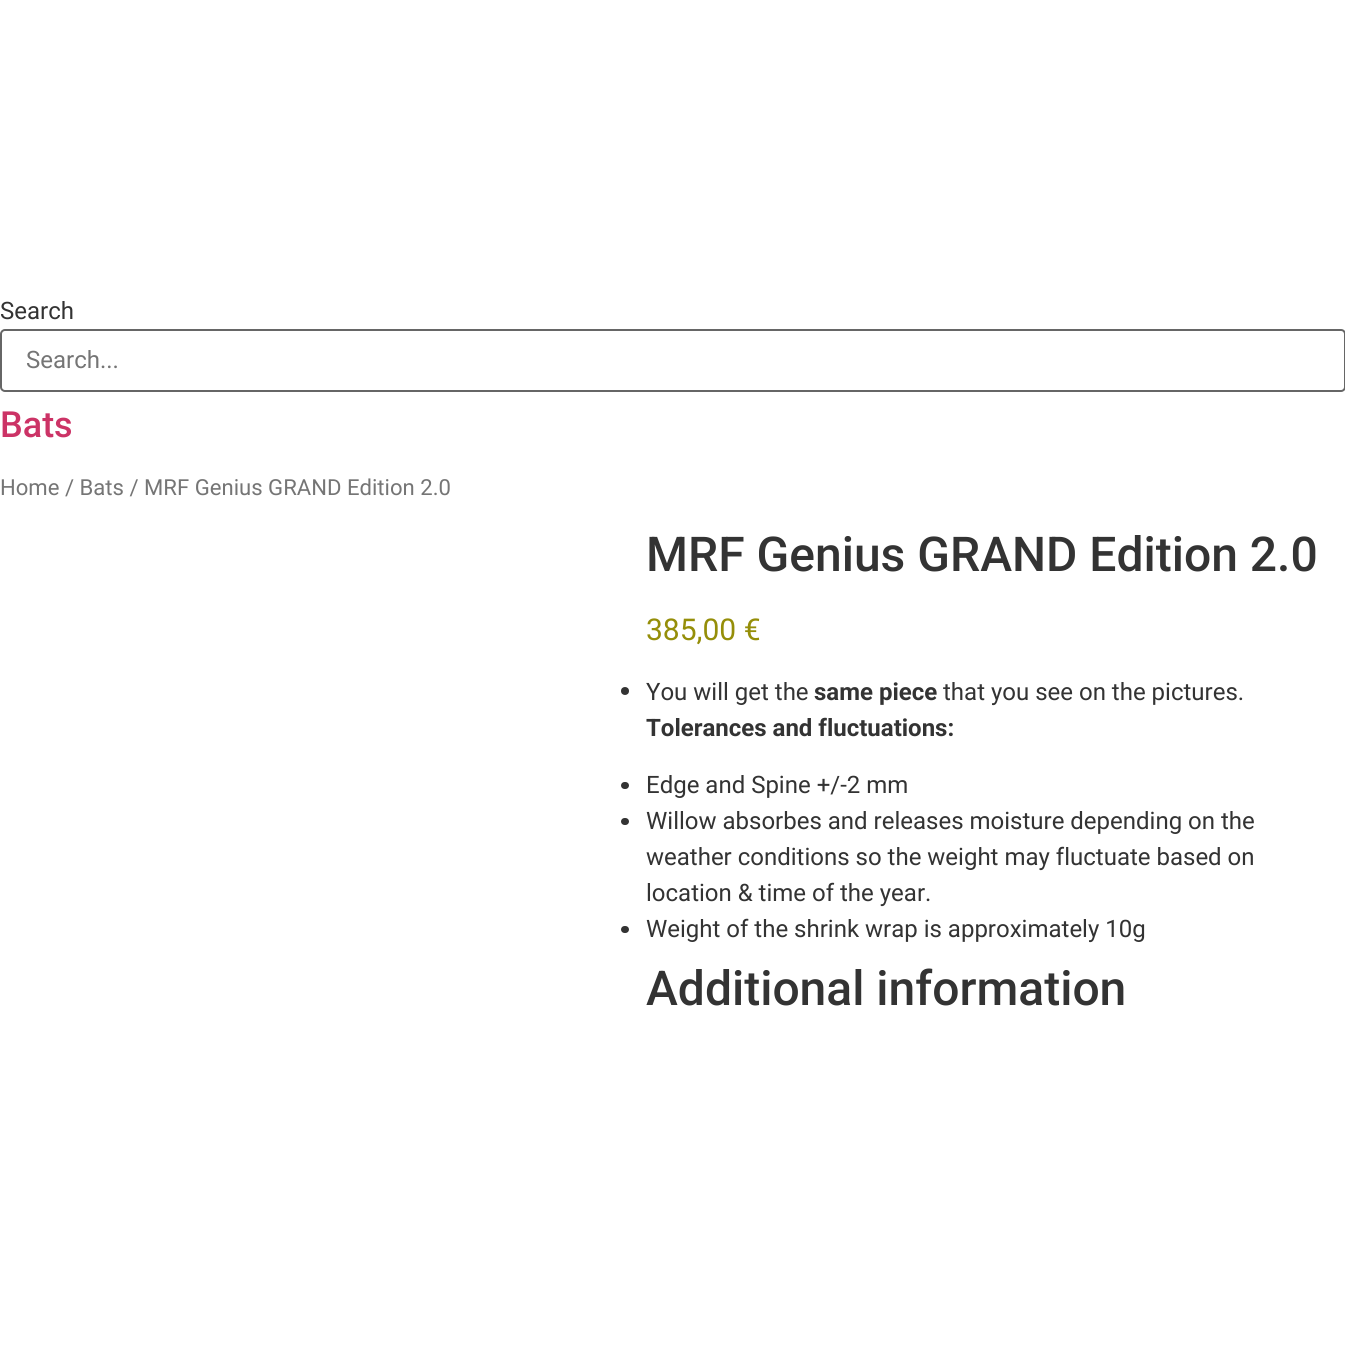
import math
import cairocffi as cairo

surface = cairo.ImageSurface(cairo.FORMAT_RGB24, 1345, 1347)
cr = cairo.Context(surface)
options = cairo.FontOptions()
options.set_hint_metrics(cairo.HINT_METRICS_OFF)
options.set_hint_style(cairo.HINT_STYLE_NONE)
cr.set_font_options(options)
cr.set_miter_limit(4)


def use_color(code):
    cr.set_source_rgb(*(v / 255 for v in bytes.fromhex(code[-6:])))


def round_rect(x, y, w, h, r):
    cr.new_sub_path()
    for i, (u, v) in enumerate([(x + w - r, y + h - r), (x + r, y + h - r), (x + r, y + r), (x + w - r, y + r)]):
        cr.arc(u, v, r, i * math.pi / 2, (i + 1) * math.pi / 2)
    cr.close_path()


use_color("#ffffff")
cr.paint()
cr.select_font_face("Roboto")
cr.set_font_size(24)
use_color("#333333")
cr.move_to(0, 319)
cr.show_text("Search")
round_rect(1, 330, 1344, 61, 4)
use_color("#666666")
cr.stroke()
use_color("#757575")
cr.move_to(26, 368)
cr.show_text("Search...")
cr.select_font_face("Roboto Medium")
cr.set_font_size(36)
use_color("#cc3366")
cr.move_to(0, 437)
cr.show_text("Bats")
cr.select_font_face("Roboto")
cr.set_font_size(22.1)
use_color("#757575")
cr.move_to(0, 495)
cr.show_text("Home / Bats / MRF Genius GRAND Edition 2.0")
cr.select_font_face("Roboto Medium")
cr.set_font_size(48)
use_color("#333333")
cr.move_to(646, 571)
cr.show_text("MRF Genius GRAND Edition 2.0")
cr.select_font_face("Roboto")
cr.set_font_size(30)
use_color("#958e09")
cr.move_to(646, 640)
cr.show_text("385,00 €")
use_color("#333333")
cr.new_path()
cr.arc(625, 691, 4, 0, 2 * math.pi)
cr.fill()
cr.set_font_size(24)
cr.move_to(646, 700)
cr.show_text("You will get the")
cr.select_font_face("Roboto", cairo.FONT_SLANT_NORMAL, cairo.FONT_WEIGHT_BOLD)
cr.move_to(814, 700)
cr.show_text("same piece")
cr.select_font_face("Roboto")
cr.move_to(943, 700)
cr.show_text("that you see on the pictures.")
cr.select_font_face("Roboto", cairo.FONT_SLANT_NORMAL, cairo.FONT_WEIGHT_BOLD)
cr.move_to(646, 736)
cr.show_text("Tolerances and fluctuations:")
round_rect(621, 782, 8, 7, 3.5)
cr.fill()
cr.select_font_face("Roboto")
cr.move_to(646, 793)
cr.show_text("Edge and Spine +/-2 mm")
round_rect(621, 818, 8, 7, 3.5)
cr.fill()
cr.move_to(646, 829)
cr.show_text("Willow absorbes and releases moisture depending on the")
cr.move_to(646, 865)
cr.show_text("weather conditions so the weight may fluctuate based on")
cr.move_to(646, 901)
cr.show_text("location & time of the year.")
round_rect(621, 926, 8, 7, 3.5)
cr.fill()
cr.move_to(646, 937)
cr.show_text("Weight of the shrink wrap is approximately 10g")
cr.select_font_face("Roboto Medium")
cr.set_font_size(48)
cr.move_to(646, 1005)
cr.show_text("Additional information")
surface.write_to_png("result.png")
